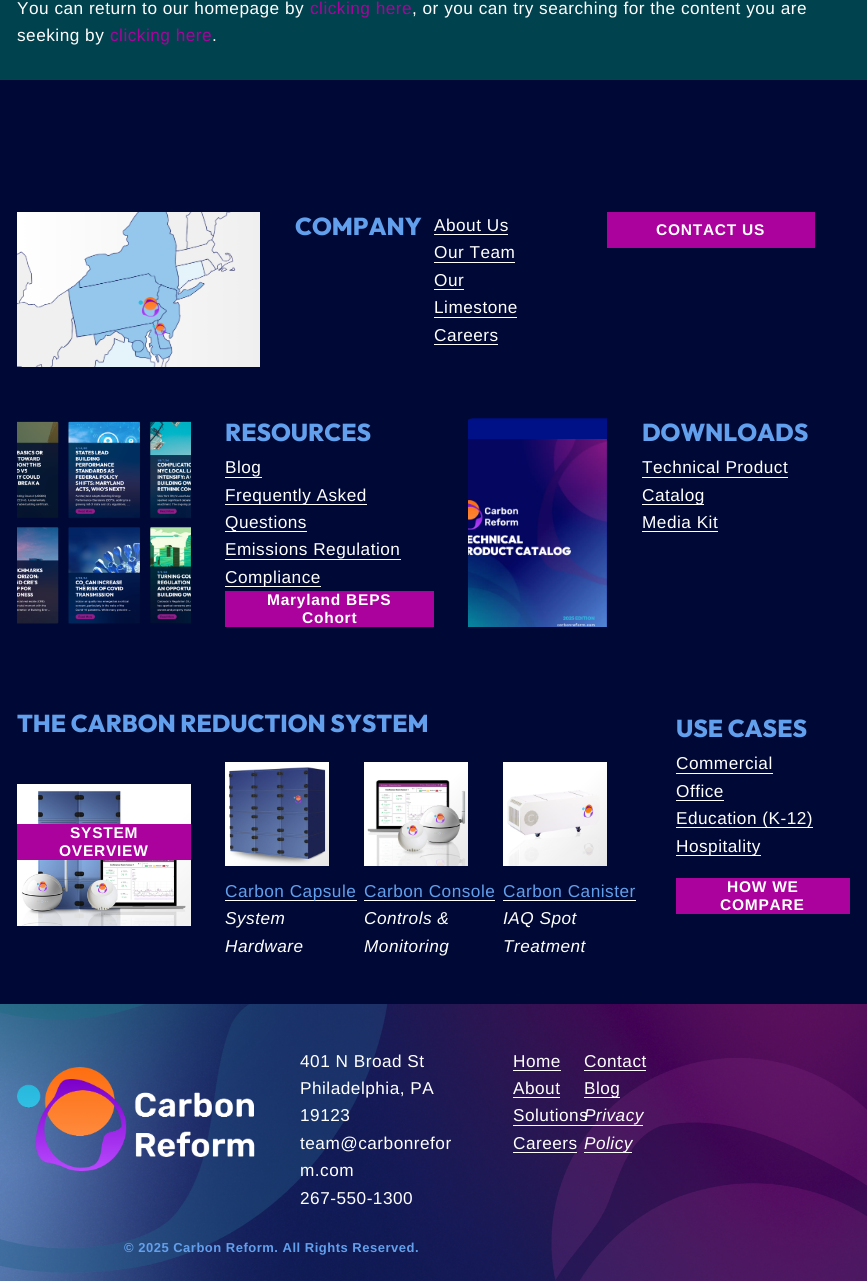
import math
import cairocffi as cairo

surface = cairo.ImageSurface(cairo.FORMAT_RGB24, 867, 1281)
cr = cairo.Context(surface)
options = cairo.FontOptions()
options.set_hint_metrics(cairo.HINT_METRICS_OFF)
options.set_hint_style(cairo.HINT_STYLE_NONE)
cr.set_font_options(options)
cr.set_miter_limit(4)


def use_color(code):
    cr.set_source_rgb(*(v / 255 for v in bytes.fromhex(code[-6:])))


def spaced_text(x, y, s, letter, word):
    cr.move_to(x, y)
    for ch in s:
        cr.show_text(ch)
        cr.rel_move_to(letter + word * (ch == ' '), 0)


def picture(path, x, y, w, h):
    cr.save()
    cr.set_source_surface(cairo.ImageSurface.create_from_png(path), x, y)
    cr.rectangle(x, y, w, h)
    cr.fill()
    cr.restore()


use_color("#00424d")
cr.paint()
cr.select_font_face("Liberation Sans")
cr.set_font_size(17.2)
use_color("#ffffff")
spaced_text(17, 14, "You can return to our homepage by", 0.5, 0)
use_color("#ab019d")
spaced_text(310, 14, "clicking here", 0.5, 0)
use_color("#ffffff")
spaced_text(412, 14, ", or you can try searching for the content you are", 0.5, 0)
spaced_text(17, 41, "seeking by", 0.5, 0)
use_color("#ab019d")
spaced_text(110, 41, "clicking here", 0.5, 0)
use_color("#ffffff")
spaced_text(212, 41, ".", 0.5, 0)
use_color("#000935")
cr.rectangle(0, 80, 867, 924)
cr.fill()
picture("img1.png", 17, 212, 243, 155)
cr.select_font_face("Outfit ExtraBold")
cr.set_font_size(24.4)
use_color("#629fec")
cr.move_to(295, 235)
cr.show_text("COMPANY")
cr.select_font_face("Liberation Sans")
cr.set_font_size(17.2)
use_color("#ffffff")
spaced_text(434, 231, "About Us", 0.5, 0)
cr.rectangle(434, 234, 74, 1)
cr.fill()
spaced_text(434, 258, "Our Team", 0.5, 0)
cr.rectangle(434, 262, 81, 1)
cr.fill()
spaced_text(434, 286, "Our", 0.5, 0)
cr.rectangle(434, 289, 30, 1)
cr.fill()
spaced_text(434, 313, "Limestone", 0.5, 0)
cr.rectangle(434, 317, 83, 1)
cr.fill()
spaced_text(434, 341, "Careers", 0.5, 0)
cr.rectangle(434, 344, 64, 1)
cr.fill()
use_color("#ab019d")
cr.rectangle(607, 212, 208, 36)
cr.fill()
cr.select_font_face("Liberation Sans", cairo.FONT_SLANT_NORMAL, cairo.FONT_WEIGHT_BOLD)
cr.set_font_size(15.5)
use_color("#ffffff")
spaced_text(656, 235, "CONTACT US", 0.75, 0)
picture("img2.png", 17, 421, 174, 203)
cr.select_font_face("Outfit ExtraBold")
cr.set_font_size(24.4)
use_color("#629fec")
cr.move_to(225, 441)
cr.show_text("RESOURCES")
picture("img3.png", 468, 418, 139, 209)
cr.move_to(642, 441)
cr.show_text("DOWNLOADS")
cr.select_font_face("Liberation Sans")
cr.set_font_size(17.2)
use_color("#ffffff")
spaced_text(225, 473, "Blog", 0.5, 0)
cr.rectangle(225, 477, 37, 1)
cr.fill()
cr.rectangle(225, 504, 142, 1)
cr.fill()
spaced_text(225, 501, "Frequently Asked", 0.5, 0)
cr.rectangle(225, 531, 82, 1)
cr.fill()
spaced_text(225, 528, "Questions", 0.5, 0)
spaced_text(225, 555, "Emissions Regulation", 0.5, 0)
cr.rectangle(225, 559, 176, 1)
cr.fill()
cr.rectangle(225, 586, 96, 1)
cr.fill()
spaced_text(225, 583, "Compliance", 0.5, 0)
spaced_text(642, 473, "Technical Product", 0.5, 0)
cr.rectangle(642, 477, 146, 1)
cr.fill()
cr.rectangle(642, 504, 62, 1)
cr.fill()
spaced_text(642, 501, "Catalog", 0.5, 0)
spaced_text(642, 528, "Media Kit", 0.5, 0)
cr.rectangle(642, 531, 76, 1)
cr.fill()
use_color("#ab019d")
cr.rectangle(225, 591, 209, 36)
cr.fill()
cr.select_font_face("Liberation Sans", cairo.FONT_SLANT_NORMAL, cairo.FONT_WEIGHT_BOLD)
cr.set_font_size(15.5)
use_color("#ffffff")
spaced_text(267, 605, "Maryland BEPS", 0.75, 0)
spaced_text(302, 623, "Cohort", 0.75, 0)
cr.select_font_face("Outfit ExtraBold")
cr.set_font_size(24.4)
use_color("#629fec")
cr.move_to(17, 732)
cr.show_text("THE CARBON REDUCTION SYSTEM")
cr.move_to(676, 737)
cr.show_text("USE CASES")
picture("img4.png", 17, 784, 174, 142)
picture("img5.png", 225, 762, 104, 104)
picture("img6.png", 364, 762, 104, 104)
picture("img7.png", 503, 762, 104, 104)
cr.select_font_face("Liberation Sans")
cr.set_font_size(17.2)
use_color("#ffffff")
spaced_text(676, 769, "Commercial", 0.5, 0)
cr.rectangle(676, 773, 97, 1)
cr.fill()
spaced_text(676, 797, "Office", 0.5, 0)
cr.rectangle(676, 800, 48, 1)
cr.fill()
cr.rectangle(676, 827, 137, 1)
cr.fill()
spaced_text(676, 824, "Education (K-12)", 0.5, 0)
cr.rectangle(676, 855, 85, 1)
cr.fill()
spaced_text(676, 852, "Hospitality", 0.5, 0)
use_color("#ab019d")
cr.rectangle(17, 824, 174, 36)
cr.fill()
cr.select_font_face("Liberation Sans", cairo.FONT_SLANT_NORMAL, cairo.FONT_WEIGHT_BOLD)
cr.set_font_size(15.5)
use_color("#ffffff")
spaced_text(70, 838, "SYSTEM", 0.75, 0)
spaced_text(59, 856, "OVERVIEW", 0.75, 0)
cr.rectangle(225, 900, 132, 1)
cr.fill()
cr.select_font_face("Liberation Sans")
cr.set_font_size(17.2)
use_color("#629fec")
spaced_text(225, 897, "Carbon Capsule", 0.5, 0)
cr.select_font_face("Liberation Sans", cairo.FONT_SLANT_ITALIC)
use_color("#ffffff")
spaced_text(225, 924, "System", 0.5, 0)
spaced_text(225, 952, "Hardware", 0.5, 0)
cr.select_font_face("Liberation Sans")
use_color("#629fec")
spaced_text(364, 897, "Carbon Console", 0.5, 0)
use_color("#ffffff")
cr.rectangle(364, 900, 131, 1)
cr.fill()
cr.select_font_face("Liberation Sans", cairo.FONT_SLANT_ITALIC)
spaced_text(364, 924, "Controls &", 0.5, 0)
spaced_text(364, 952, "Monitoring", 0.5, 0)
cr.select_font_face("Liberation Sans")
use_color("#629fec")
spaced_text(503, 897, "Carbon Canister", 0.5, 0)
use_color("#ffffff")
cr.rectangle(503, 900, 133, 1)
cr.fill()
cr.select_font_face("Liberation Sans", cairo.FONT_SLANT_ITALIC)
spaced_text(503, 924, "IAQ Spot", 0.5, 0)
spaced_text(503, 952, "Treatment", 0.5, 0)
use_color("#ab019d")
cr.rectangle(676, 878, 174, 36)
cr.fill()
cr.select_font_face("Liberation Sans", cairo.FONT_SLANT_NORMAL, cairo.FONT_WEIGHT_BOLD)
cr.set_font_size(15.5)
use_color("#ffffff")
spaced_text(727, 892, "HOW WE", 0.75, 0)
spaced_text(720, 910, "COMPARE", 0.75, 0)
picture("img8.png", 0, 1004, 867, 277)
picture("img9.png", 17, 1067, 238, 104)
cr.select_font_face("Liberation Sans")
cr.set_font_size(17.2)
spaced_text(300, 1067, "401 N Broad St", 0.5, 0)
spaced_text(300, 1094, "Philadelphia, PA", 0.5, 0)
spaced_text(300, 1121, "19123", 0.5, 0)
spaced_text(300, 1149, "team@carbonrefor", 0.5, 0)
spaced_text(300, 1176, "m.com", 0.5, 0)
spaced_text(300, 1204, "267-550-1300", 0.5, 0)
spaced_text(513, 1067, "Home", 0.5, 0)
cr.rectangle(513, 1070, 48, 1)
cr.fill()
spaced_text(513, 1094, "About", 0.5, 0)
cr.rectangle(513, 1097, 47, 1)
cr.fill()
spaced_text(513, 1121, "Solutions", 0.5, 0)
cr.rectangle(513, 1125, 130, 1)
cr.fill()
spaced_text(513, 1149, "Careers", 0.5, 0)
cr.rectangle(513, 1152, 64, 1)
cr.fill()
spaced_text(584, 1067, "Contact", 0.5, 0)
cr.rectangle(584, 1070, 62, 1)
cr.fill()
cr.rectangle(584, 1097, 36, 1)
cr.fill()
spaced_text(584, 1094, "Blog", 0.5, 0)
cr.select_font_face("Liberation Sans", cairo.FONT_SLANT_ITALIC)
spaced_text(584, 1121, "Privacy", 0.5, 0)
cr.rectangle(584, 1152, 48, 1)
cr.fill()
spaced_text(584, 1149, "Policy", 0.5, 0)
cr.select_font_face("Liberation Sans", cairo.FONT_SLANT_NORMAL, cairo.FONT_WEIGHT_BOLD)
cr.set_font_size(13)
use_color("#629fec")
spaced_text(124, 1252, "© 2025 Carbon Reform. All Rights Reserved.", 0.5, 0)
surface.write_to_png("result.png")
